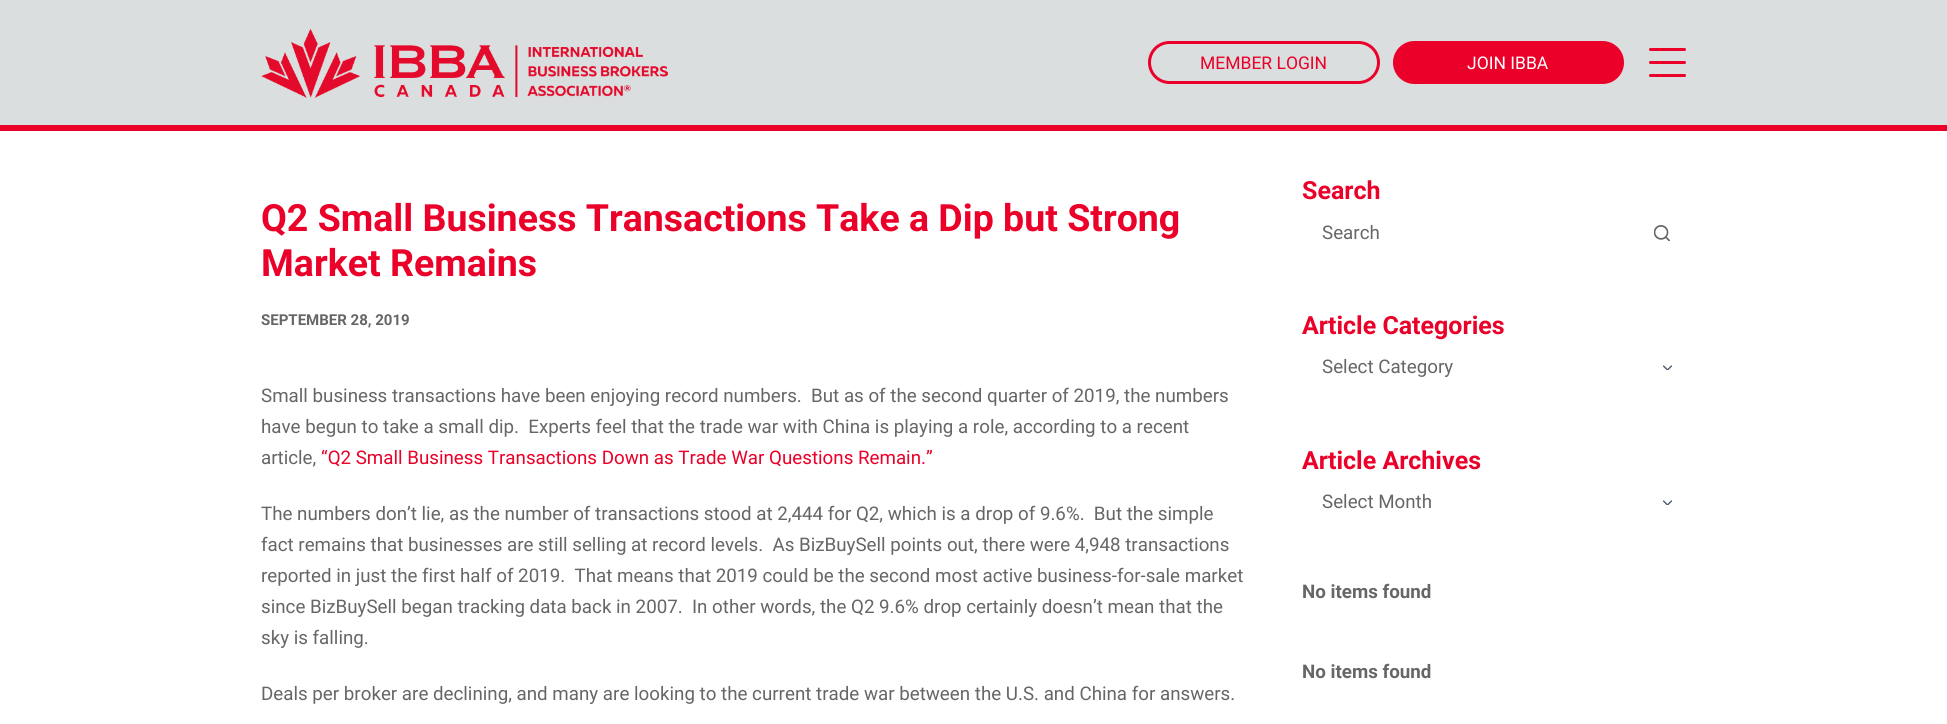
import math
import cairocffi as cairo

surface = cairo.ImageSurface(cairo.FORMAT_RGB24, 1947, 724)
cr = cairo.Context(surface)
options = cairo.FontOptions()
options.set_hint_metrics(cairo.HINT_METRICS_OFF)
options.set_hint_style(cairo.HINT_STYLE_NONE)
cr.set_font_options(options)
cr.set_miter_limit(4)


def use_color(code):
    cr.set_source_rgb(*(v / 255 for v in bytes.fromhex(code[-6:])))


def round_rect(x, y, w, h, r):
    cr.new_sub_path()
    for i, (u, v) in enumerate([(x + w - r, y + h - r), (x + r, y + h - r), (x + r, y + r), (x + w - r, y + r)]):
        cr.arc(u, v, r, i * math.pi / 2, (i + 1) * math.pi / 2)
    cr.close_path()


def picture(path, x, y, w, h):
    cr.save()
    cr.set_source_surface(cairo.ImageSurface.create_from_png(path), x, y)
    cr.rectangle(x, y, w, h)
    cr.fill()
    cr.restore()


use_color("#ffffff")
cr.paint()
use_color("#dbdede")
cr.rectangle(0, 0, 1947, 125)
cr.fill()
use_color("#ea0028")
cr.rectangle(0, 125, 1947, 6)
cr.fill()
picture("img1.png", 261, 29, 407, 69)
round_rect(1149.5, 42.5, 229, 40, 20)
cr.set_line_width(3)
cr.stroke()
cr.select_font_face("Roboto")
cr.set_font_size(17.5)
cr.move_to(1200, 69)
cr.show_text("MEMBER LOGIN")
round_rect(1393, 41, 231, 43, 21.5)
cr.fill()
use_color("#ffffff")
cr.move_to(1467, 69)
cr.show_text("JOIN IBBA")
use_color("#ea0028")
round_rect(1649, 48, 37, 3, 1.5)
cr.fill()
round_rect(1649, 61, 37, 3, 1.5)
cr.fill()
round_rect(1649, 74, 37, 3, 1.5)
cr.fill()
cr.select_font_face("Roboto", cairo.FONT_SLANT_NORMAL, cairo.FONT_WEIGHT_BOLD)
cr.set_font_size(37.5)
cr.move_to(261, 231)
cr.show_text("Q2 Small Business Transactions Take a Dip but Strong")
cr.move_to(261, 276)
cr.show_text("Market Remains")
cr.set_font_size(15)
use_color("#666666")
cr.move_to(261, 325)
cr.show_text("SEPTEMBER 28, 2019")
cr.select_font_face("Roboto")
cr.set_font_size(18.75)
cr.move_to(261, 402)
cr.show_text("Small business transactions have been enjoying record numbers.  But as of the second quarter of 2019, the numbers")
cr.move_to(261, 433)
cr.show_text("have begun to take a small dip.  Experts feel that the trade war with China is playing a role, according to a recent")
cr.move_to(261, 464)
cr.show_text("article,")
use_color("#ea0028")
cr.move_to(321, 464)
cr.show_text("“Q2 Small Business Transactions Down as Trade War Questions Remain.”")
use_color("#666666")
cr.move_to(261, 520)
cr.show_text("The numbers don’t lie, as the number of transactions stood at 2,444 for Q2, which is a drop of 9.6%.  But the simple")
cr.move_to(261, 551)
cr.show_text("fact remains that businesses are still selling at record levels.  As BizBuySell points out, there were 4,948 transactions")
cr.move_to(261, 582)
cr.show_text("reported in just the first half of 2019.  That means that 2019 could be the second most active business-for-sale market")
cr.move_to(261, 613)
cr.show_text("since BizBuySell began tracking data back in 2007.  In other words, the Q2 9.6% drop certainly doesn’t mean that the")
cr.move_to(261, 644)
cr.show_text("sky is falling.")
cr.move_to(261, 700)
cr.show_text("Deals per broker are declining, and many are looking to the current trade war between the U.S. and China for answers.")
cr.select_font_face("Roboto", cairo.FONT_SLANT_NORMAL, cairo.FONT_WEIGHT_BOLD)
cr.set_font_size(25)
use_color("#ea0028")
cr.move_to(1302, 199)
cr.show_text("Search")
cr.select_font_face("Roboto")
cr.set_font_size(18.75)
use_color("#666666")
cr.move_to(1322, 239)
cr.show_text("Search")
picture("img2.png", 1654, 225, 16, 16)
cr.select_font_face("Roboto", cairo.FONT_SLANT_NORMAL, cairo.FONT_WEIGHT_BOLD)
cr.set_font_size(25)
use_color("#ea0028")
cr.move_to(1302, 334)
cr.show_text("Article Categories")
picture("img3.png", 1663, 365, 10, 5)
cr.select_font_face("Roboto")
cr.set_font_size(18.75)
use_color("#666666")
cr.move_to(1322, 373)
cr.show_text("Select Category")
cr.select_font_face("Roboto", cairo.FONT_SLANT_NORMAL, cairo.FONT_WEIGHT_BOLD)
cr.set_font_size(25)
use_color("#ea0028")
cr.move_to(1302, 469)
cr.show_text("Article Archives")
picture("img3.png", 1663, 500, 10, 5)
cr.select_font_face("Roboto")
cr.set_font_size(18.75)
use_color("#666666")
cr.move_to(1322, 508)
cr.show_text("Select Month")
cr.select_font_face("Roboto", cairo.FONT_SLANT_NORMAL, cairo.FONT_WEIGHT_BOLD)
cr.move_to(1302, 598)
cr.show_text("No items found")
cr.move_to(1302, 678)
cr.show_text("No items found")
surface.write_to_png("result.png")
